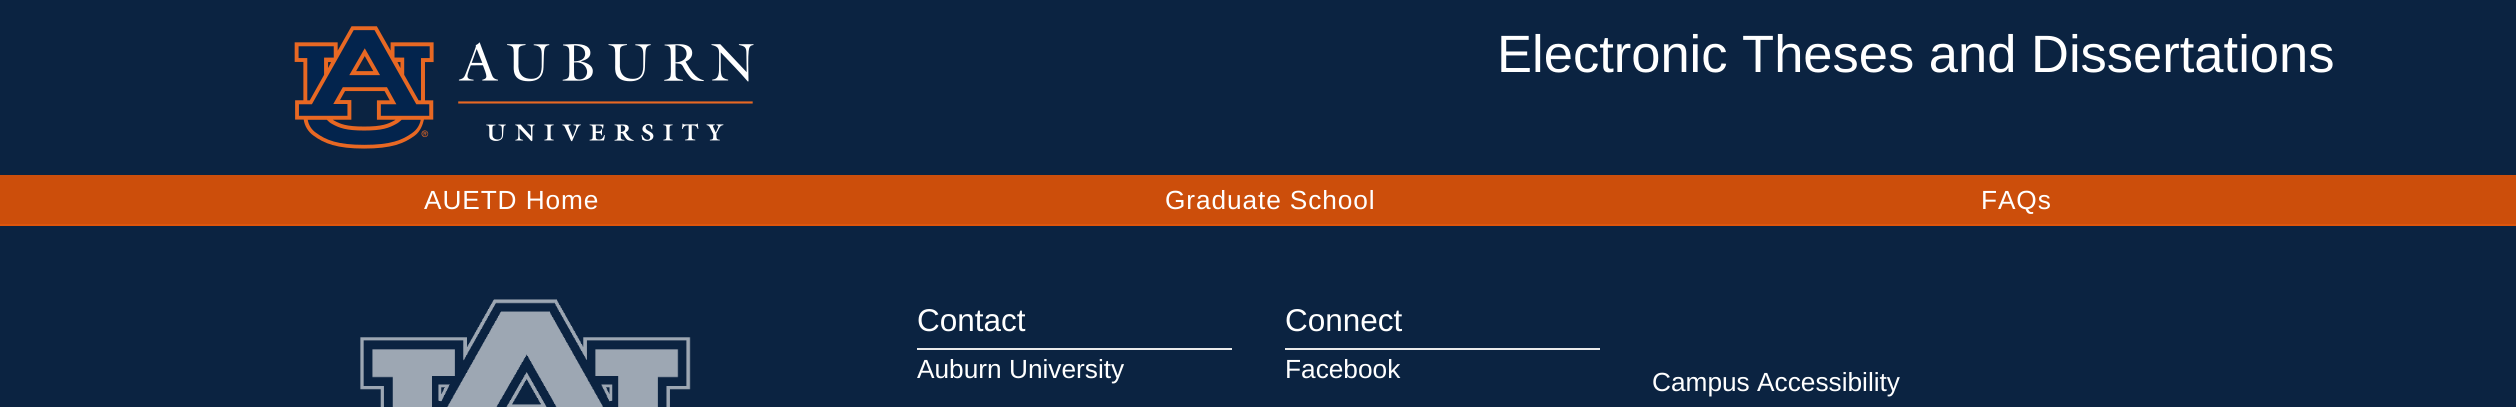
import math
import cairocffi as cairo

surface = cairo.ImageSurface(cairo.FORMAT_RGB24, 2516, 407)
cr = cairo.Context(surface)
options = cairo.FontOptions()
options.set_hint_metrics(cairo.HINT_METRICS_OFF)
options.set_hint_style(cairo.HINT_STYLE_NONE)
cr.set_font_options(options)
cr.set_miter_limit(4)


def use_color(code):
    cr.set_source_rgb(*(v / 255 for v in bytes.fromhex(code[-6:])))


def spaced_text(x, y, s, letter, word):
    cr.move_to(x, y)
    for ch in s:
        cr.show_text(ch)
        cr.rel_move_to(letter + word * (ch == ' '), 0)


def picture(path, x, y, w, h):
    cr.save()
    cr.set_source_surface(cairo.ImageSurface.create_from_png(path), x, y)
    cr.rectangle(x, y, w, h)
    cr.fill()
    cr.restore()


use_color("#0b2341")
cr.paint()
picture("img1.png", 294, 26, 460, 123)
cr.select_font_face("Liberation Sans")
cr.set_font_size(52.5)
use_color("#ffffff")
cr.move_to(1497, 72)
cr.show_text("Electronic Theses and Dissertations")
use_color("#cc4e0b")
cr.rectangle(0, 175, 2516, 49)
cr.fill()
cr.set_font_size(26.25)
use_color("#ffffff")
spaced_text(424, 209, "AUETD Home", 0.9, 0)
spaced_text(1165, 209, "Graduate School", 0.9, 0)
spaced_text(1981, 209, "FAQs", 0.9, 0)
use_color("#dd550c")
cr.rectangle(0, 224, 2516, 2)
cr.fill()
picture("img2.png", 360, 299, 331, 108)
use_color("#eaeaea")
cr.rectangle(917, 348, 315, 2)
cr.fill()
cr.set_font_size(31.5)
use_color("#ffffff")
cr.move_to(917, 331)
cr.show_text("Contact")
cr.set_font_size(26.25)
cr.move_to(917, 378)
cr.show_text("Auburn University")
use_color("#eaeaea")
cr.rectangle(1285, 348, 315, 2)
cr.fill()
cr.set_font_size(31.5)
use_color("#ffffff")
cr.move_to(1285, 331)
cr.show_text("Connect")
cr.set_font_size(26.25)
cr.move_to(1285, 378)
cr.show_text("Facebook")
cr.move_to(1652, 391)
cr.show_text("Campus Accessibility")
surface.write_to_png("result.png")
